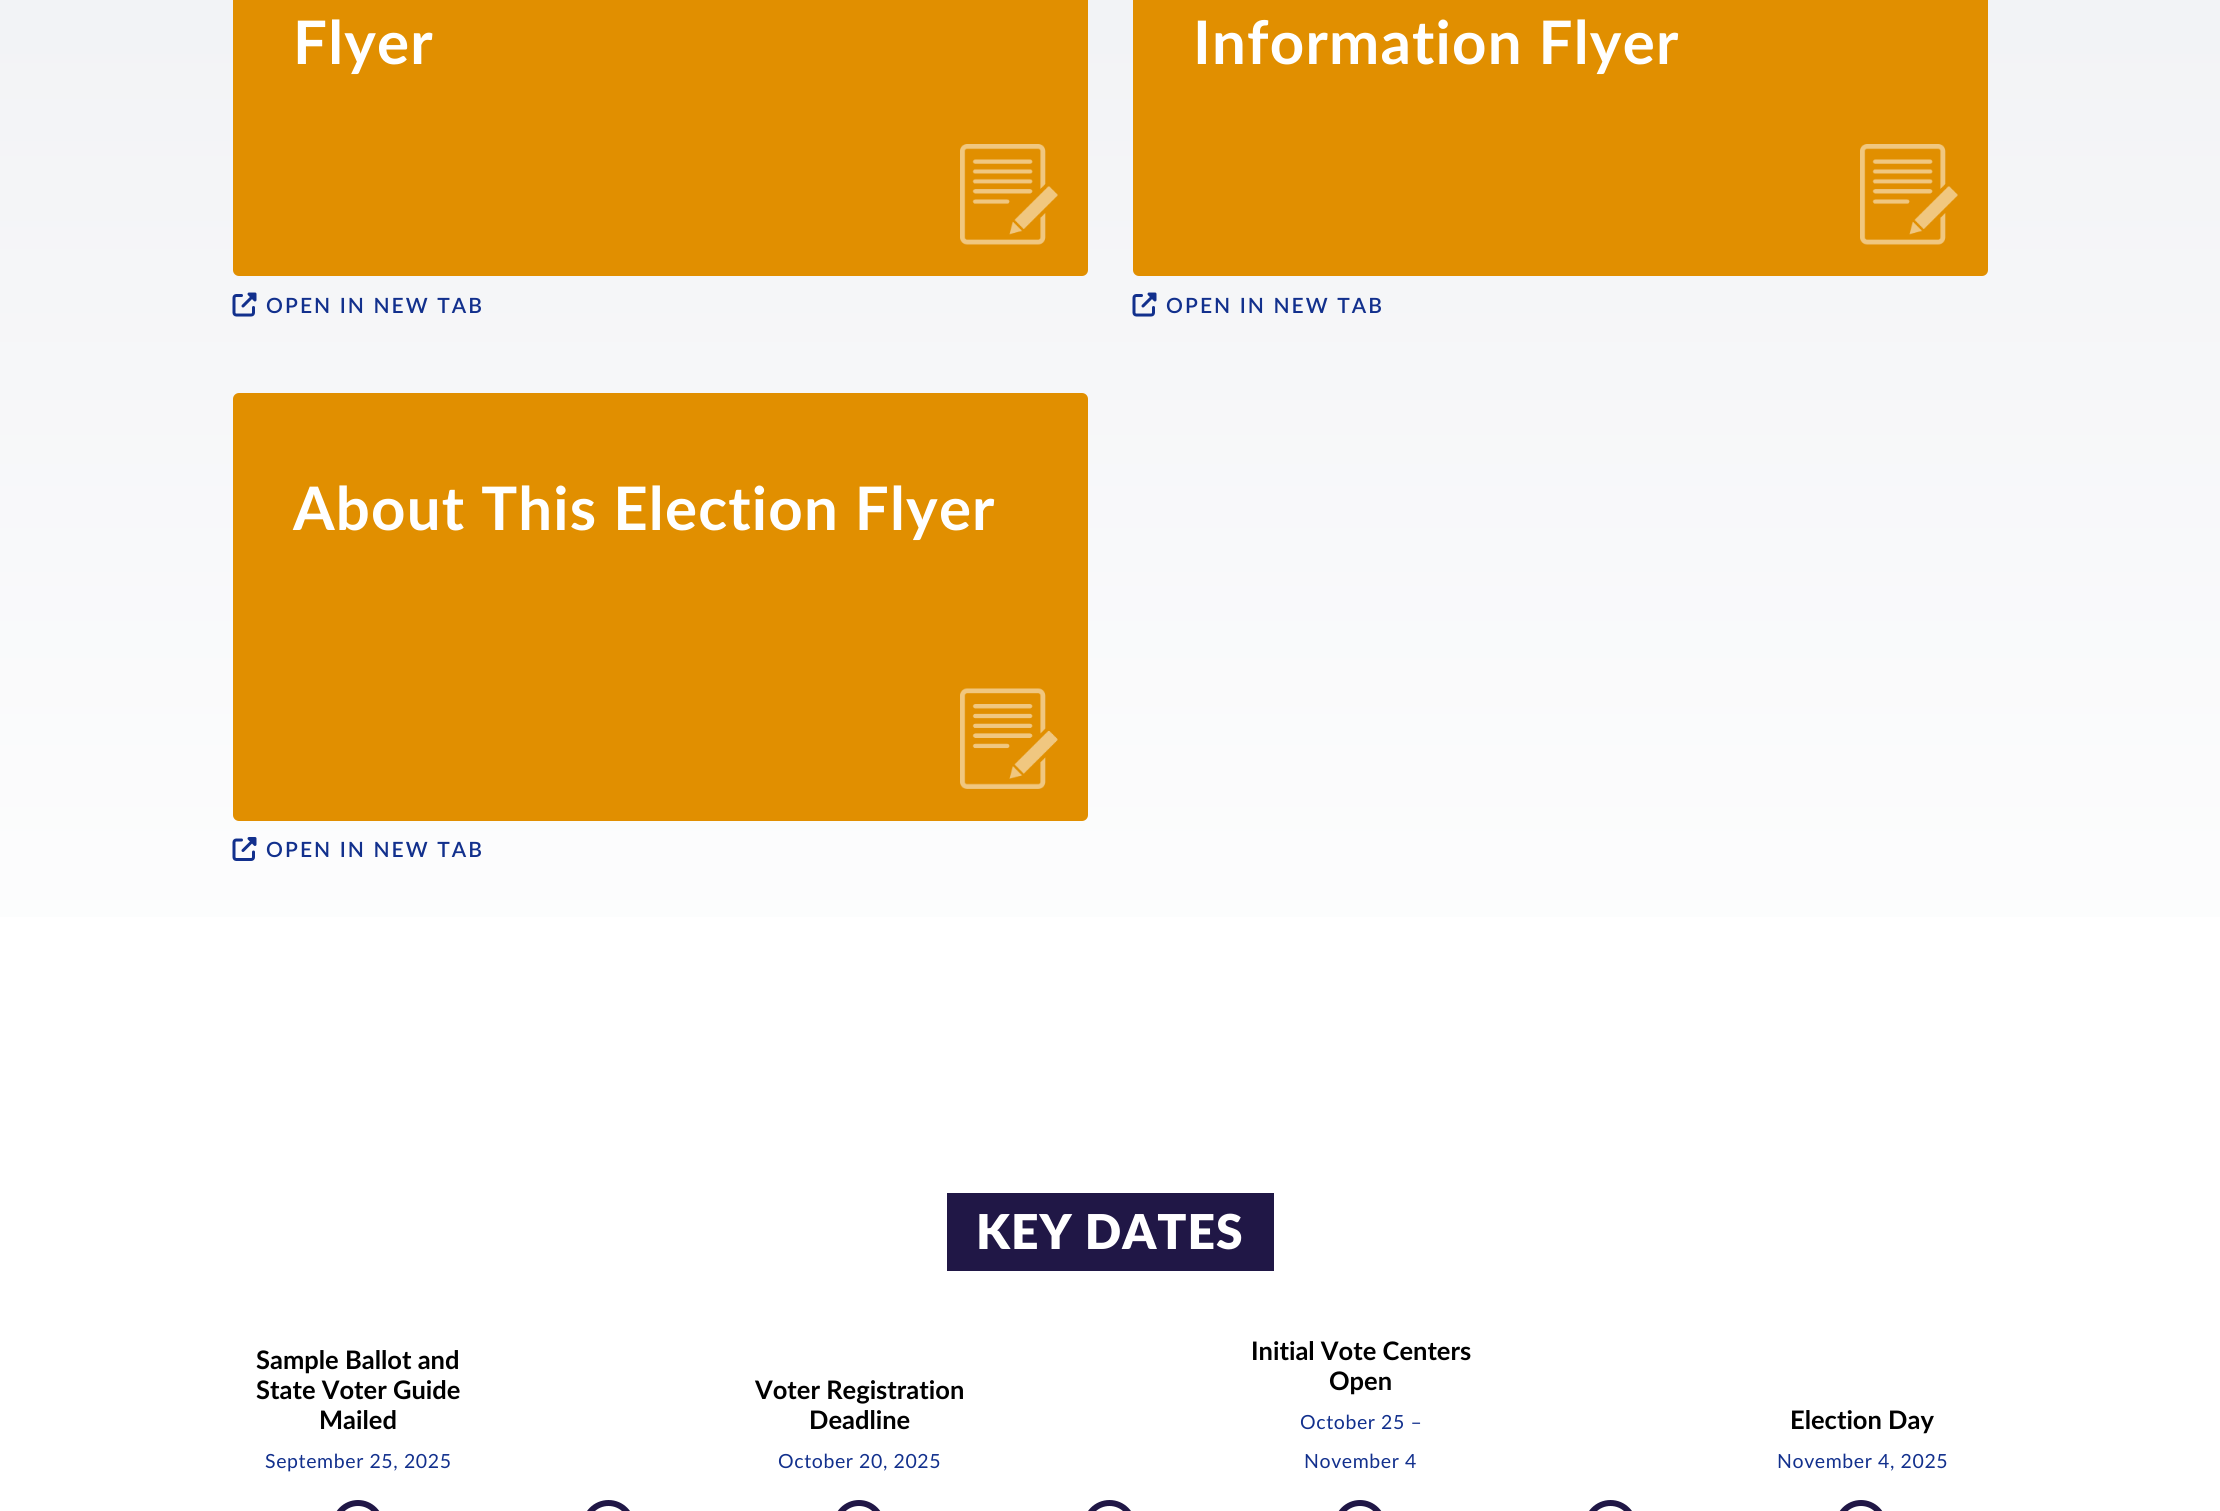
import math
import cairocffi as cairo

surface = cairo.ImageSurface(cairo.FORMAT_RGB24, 2220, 1511)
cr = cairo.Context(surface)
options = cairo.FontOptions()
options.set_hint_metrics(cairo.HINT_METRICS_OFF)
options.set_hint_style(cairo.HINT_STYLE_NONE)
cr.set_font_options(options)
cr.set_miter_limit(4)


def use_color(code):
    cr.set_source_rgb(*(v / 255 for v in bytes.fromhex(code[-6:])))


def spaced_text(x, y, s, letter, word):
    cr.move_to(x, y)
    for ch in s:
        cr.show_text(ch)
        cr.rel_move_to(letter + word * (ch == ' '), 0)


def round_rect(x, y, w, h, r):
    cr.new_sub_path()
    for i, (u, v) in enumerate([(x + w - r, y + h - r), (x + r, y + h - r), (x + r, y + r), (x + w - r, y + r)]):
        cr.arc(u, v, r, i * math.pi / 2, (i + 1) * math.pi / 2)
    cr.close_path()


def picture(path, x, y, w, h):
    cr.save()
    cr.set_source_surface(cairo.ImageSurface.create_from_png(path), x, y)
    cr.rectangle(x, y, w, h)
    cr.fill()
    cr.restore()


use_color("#ffffff")
cr.paint()
gradient = cairo.LinearGradient(1110, -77, 1110, 1133)
gradient.add_color_stop_rgba(0, 0.945, 0.949, 0.961, 1)
gradient.add_color_stop_rgba(1, 1, 1, 1, 1)
cr.set_source(gradient)
cr.rectangle(0, 0, 2220, 917)
cr.fill()
use_color("#e18f00")
round_rect(233, -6, 855, 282, 6)
cr.fill()
picture("img1.png", 960, 144, 98, 101)
cr.select_font_face("Lato", cairo.FONT_SLANT_NORMAL, cairo.FONT_WEIGHT_BOLD)
cr.set_font_size(60)
use_color("#ffffff")
spaced_text(293, 64, "Flyer", 1.2, 0)
picture("img2.png", 232, 292, 25, 25)
cr.select_font_face("Lato SemiBold")
cr.set_font_size(21)
use_color("#12308d")
spaced_text(266, 313, "OPEN IN NEW TAB", 2.1, 0)
use_color("#e18f00")
round_rect(1133, -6, 855, 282, 6)
cr.fill()
picture("img3.png", 1860, 144, 98, 101)
cr.select_font_face("Lato", cairo.FONT_SLANT_NORMAL, cairo.FONT_WEIGHT_BOLD)
cr.set_font_size(60)
use_color("#ffffff")
spaced_text(1193, 64, "Information Flyer", 1.2, 0)
picture("img2.png", 1132, 292, 25, 25)
cr.select_font_face("Lato SemiBold")
cr.set_font_size(21)
use_color("#12308d")
spaced_text(1166, 313, "OPEN IN NEW TAB", 2.1, 0)
use_color("#e18f00")
round_rect(233, 393, 855, 428, 6)
cr.fill()
picture("img4.png", 960, 688, 98, 101)
cr.select_font_face("Lato", cairo.FONT_SLANT_NORMAL, cairo.FONT_WEIGHT_BOLD)
cr.set_font_size(60)
use_color("#ffffff")
spaced_text(293, 530, "About This Election Flyer", 1.2, 0)
picture("img5.png", 232, 837, 25, 24)
cr.select_font_face("Lato SemiBold")
cr.set_font_size(21)
use_color("#12308d")
spaced_text(266, 857, "OPEN IN NEW TAB", 2.1, 0)
use_color("#201746")
cr.rectangle(947, 1193, 327, 78)
cr.fill()
cr.select_font_face("Lato Black")
cr.set_font_size(48)
use_color("#ffffff")
spaced_text(976, 1249, "KEY DATES", 1, 0)
cr.select_font_face("Lato", cairo.FONT_SLANT_NORMAL, cairo.FONT_WEIGHT_BOLD)
cr.set_font_size(25.5)
use_color("#000000")
cr.move_to(256, 1369)
cr.show_text("Sample Ballot and")
cr.move_to(256, 1399)
cr.show_text("State Voter Guide")
cr.move_to(319, 1429)
cr.show_text("Mailed")
cr.select_font_face("Lato")
cr.set_font_size(19.5)
use_color("#12308d")
spaced_text(265, 1468, "September 25, 2025", 0.6, 0)
round_rect(335, 1503, 46, 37, 23)
use_color("#201746")
cr.set_line_width(6)
cr.stroke()
cr.select_font_face("Lato", cairo.FONT_SLANT_NORMAL, cairo.FONT_WEIGHT_BOLD)
cr.set_font_size(25.5)
use_color("#000000")
cr.move_to(755, 1399)
cr.show_text("Voter Registration")
cr.move_to(809, 1429)
cr.show_text("Deadline")
cr.select_font_face("Lato")
cr.set_font_size(19.5)
use_color("#12308d")
spaced_text(778, 1468, "October 20, 2025", 0.6, 0)
round_rect(836, 1503, 46, 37, 23)
use_color("#201746")
cr.stroke()
cr.select_font_face("Lato", cairo.FONT_SLANT_NORMAL, cairo.FONT_WEIGHT_BOLD)
cr.set_font_size(25.5)
use_color("#000000")
cr.move_to(1251, 1360)
cr.show_text("Initial Vote Centers")
cr.move_to(1329, 1390)
cr.show_text("Open")
cr.select_font_face("Lato")
cr.set_font_size(19.5)
use_color("#12308d")
spaced_text(1300, 1429, "October 25 –", 0.6, 0)
spaced_text(1304, 1468, "November 4", 0.6, 0)
round_rect(1337, 1503, 46, 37, 23)
use_color("#201746")
cr.stroke()
cr.select_font_face("Lato", cairo.FONT_SLANT_NORMAL, cairo.FONT_WEIGHT_BOLD)
cr.set_font_size(25.5)
use_color("#000000")
cr.move_to(1790, 1429)
cr.show_text("Election Day")
cr.select_font_face("Lato")
cr.set_font_size(19.5)
use_color("#12308d")
spaced_text(1777, 1468, "November 4, 2025", 0.6, 0)
round_rect(1838, 1503, 46, 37, 23)
use_color("#201746")
cr.stroke()
round_rect(585, 1503, 47, 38, 23.5)
cr.stroke()
round_rect(1086, 1503, 47, 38, 23.5)
cr.stroke()
round_rect(1587, 1503, 47, 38, 23.5)
cr.stroke()
surface.write_to_png("result.png")
